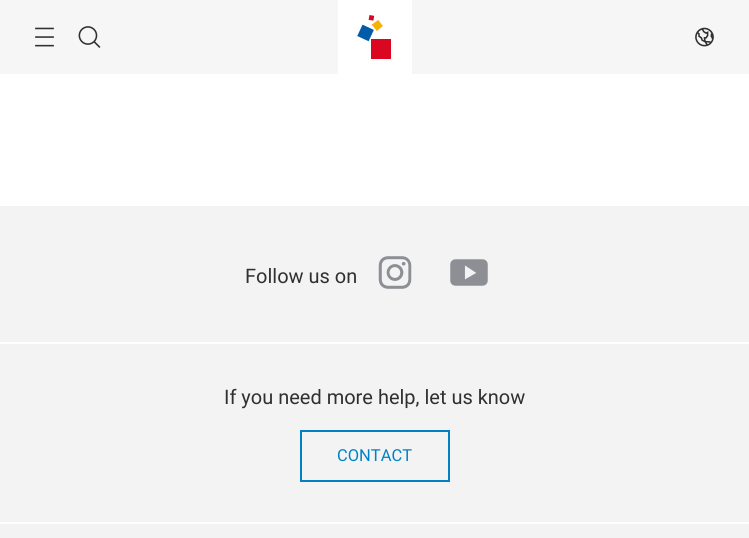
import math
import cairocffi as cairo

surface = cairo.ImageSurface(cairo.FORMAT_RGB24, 749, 538)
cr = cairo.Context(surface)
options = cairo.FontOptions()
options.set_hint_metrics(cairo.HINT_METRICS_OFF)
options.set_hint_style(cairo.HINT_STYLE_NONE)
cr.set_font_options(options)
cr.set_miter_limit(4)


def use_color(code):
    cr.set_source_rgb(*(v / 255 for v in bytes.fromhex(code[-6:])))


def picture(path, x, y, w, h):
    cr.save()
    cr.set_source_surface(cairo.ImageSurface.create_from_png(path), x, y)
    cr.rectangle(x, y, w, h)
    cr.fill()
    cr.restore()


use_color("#ffffff")
cr.paint()
use_color("#f6f6f6")
cr.rectangle(0, 0, 749, 74)
cr.fill()
picture("img1.png", 35, 27, 19, 20)
picture("img2.png", 78, 26, 23, 22)
use_color("#ffffff")
cr.rectangle(338, 0, 74, 74)
cr.fill()
picture("img3.png", 357, 15, 34, 44)
picture("img4.png", 695, 27, 19, 20)
use_color("#f3f3f3")
cr.rectangle(0, 206, 749, 136)
cr.fill()
cr.select_font_face("Roboto")
cr.set_font_size(20)
use_color("#303030")
cr.move_to(245, 283)
cr.show_text("Follow us on")
picture("img5.png", 378, 256, 34, 33)
picture("img6.png", 450, 259, 38, 27)
use_color("#f3f3f3")
cr.rectangle(0, 344, 749, 178)
cr.fill()
use_color("#303030")
cr.move_to(224, 404)
cr.show_text("If you need more help, let us know")
cr.rectangle(301, 431, 148, 50)
use_color("#0081c6")
cr.stroke()
cr.set_font_size(16.5)
cr.move_to(337, 461)
cr.show_text("CONTACT")
use_color("#f3f3f3")
cr.rectangle(0, 524, 749, 14)
cr.fill()
surface.write_to_png("result.png")
